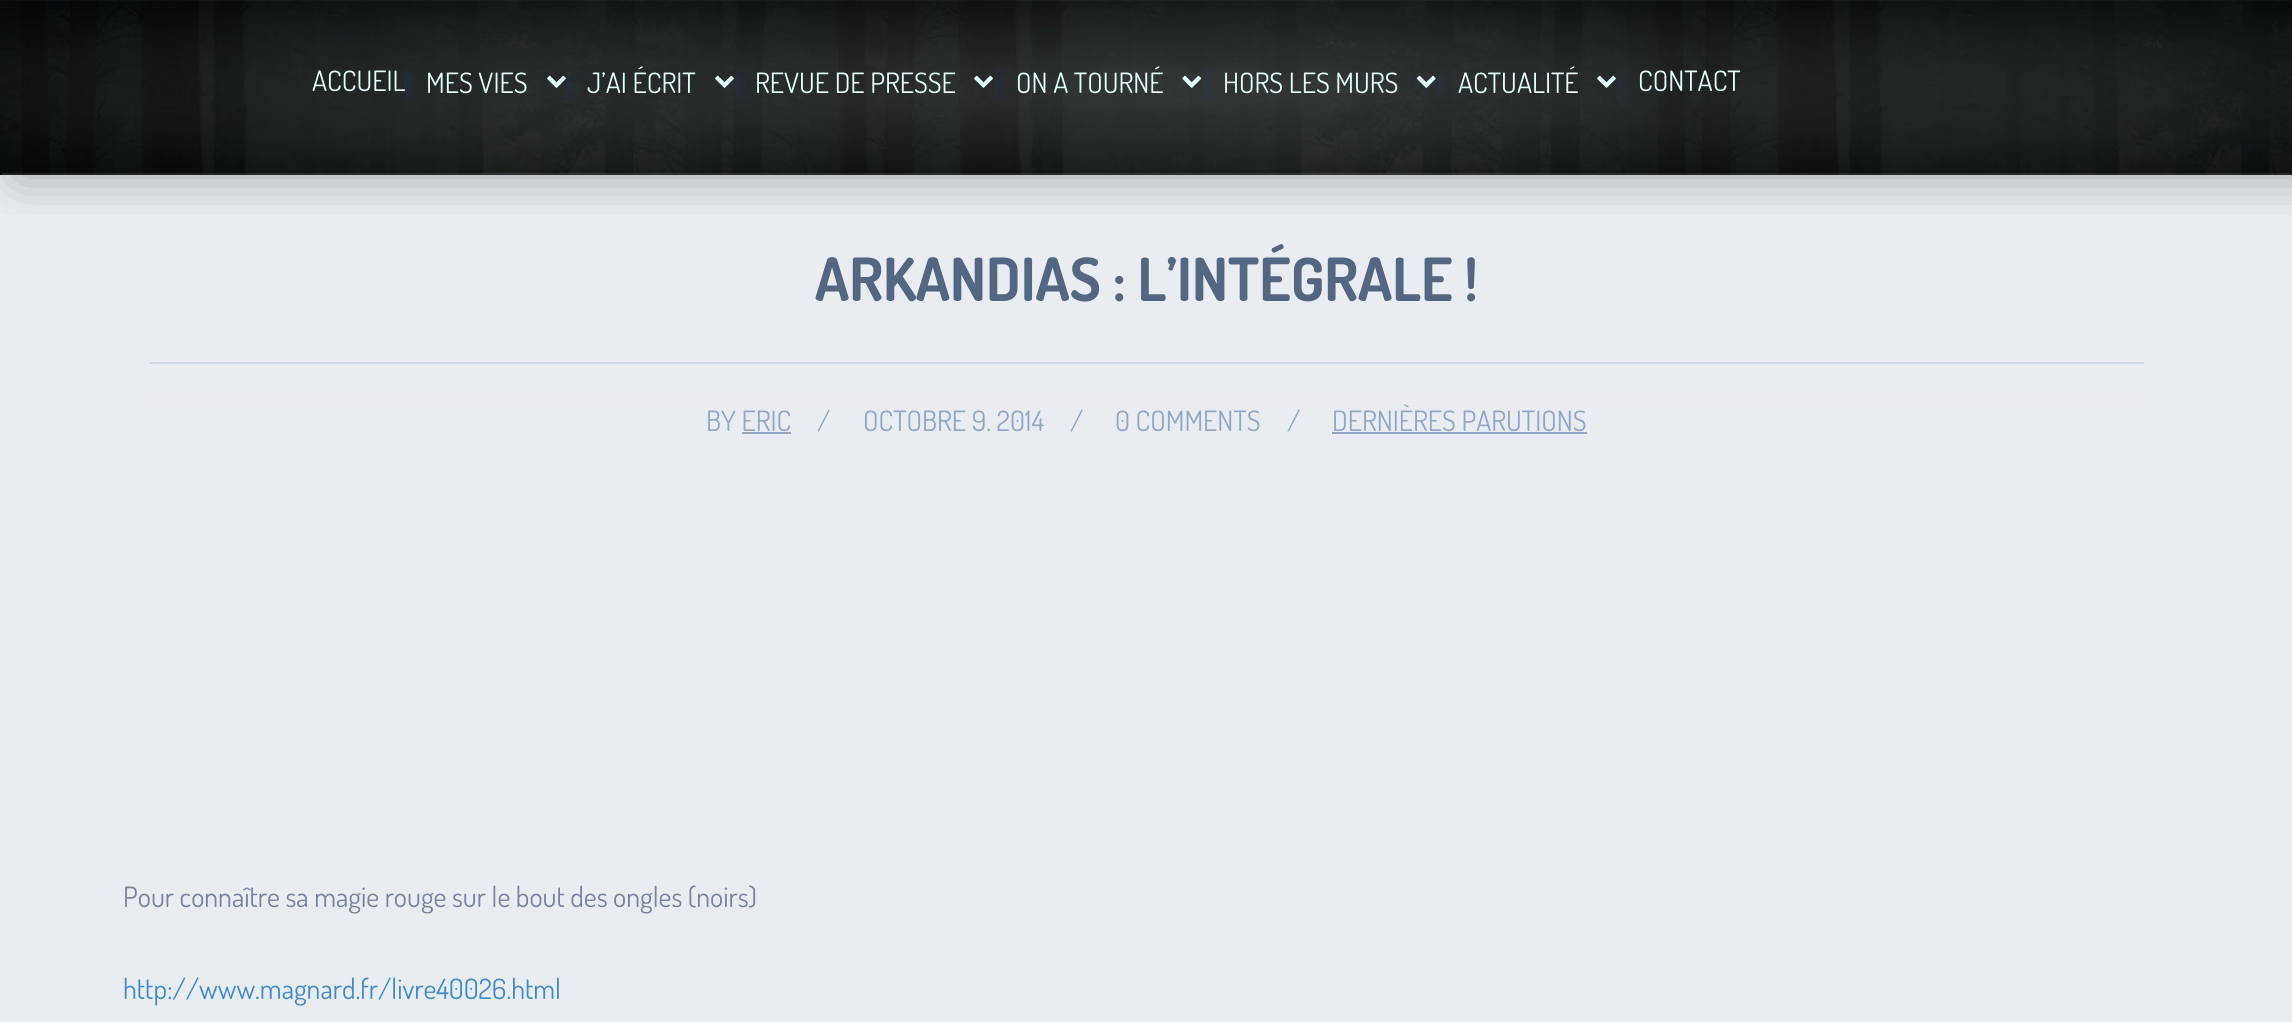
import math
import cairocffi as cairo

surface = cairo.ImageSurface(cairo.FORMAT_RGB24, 2292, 1022)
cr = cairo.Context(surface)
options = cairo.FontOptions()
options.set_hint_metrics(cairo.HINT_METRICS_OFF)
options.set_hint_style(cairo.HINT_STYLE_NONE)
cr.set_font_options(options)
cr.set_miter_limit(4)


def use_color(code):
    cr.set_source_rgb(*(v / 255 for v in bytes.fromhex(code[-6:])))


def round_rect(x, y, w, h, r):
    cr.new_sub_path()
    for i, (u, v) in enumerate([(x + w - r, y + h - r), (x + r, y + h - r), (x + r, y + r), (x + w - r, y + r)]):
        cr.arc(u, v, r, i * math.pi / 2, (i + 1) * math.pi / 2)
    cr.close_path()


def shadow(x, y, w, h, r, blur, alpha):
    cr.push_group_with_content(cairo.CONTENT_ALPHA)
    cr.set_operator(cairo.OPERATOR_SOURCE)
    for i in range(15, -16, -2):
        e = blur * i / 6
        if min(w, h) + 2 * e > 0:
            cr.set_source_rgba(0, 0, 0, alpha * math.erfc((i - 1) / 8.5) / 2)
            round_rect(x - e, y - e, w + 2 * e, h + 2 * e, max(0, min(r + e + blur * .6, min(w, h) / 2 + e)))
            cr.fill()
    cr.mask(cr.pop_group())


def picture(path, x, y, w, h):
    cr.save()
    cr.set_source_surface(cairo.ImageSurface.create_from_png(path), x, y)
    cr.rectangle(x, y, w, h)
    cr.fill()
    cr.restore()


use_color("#ffffff")
cr.paint()
picture("img1.png", 0, 0, 2292, 175)
use_color("#e9edf2")
cr.rectangle(0, 175, 2292, 847)
cr.fill()
cr.save()
cr.rectangle(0, 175, 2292, 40)
cr.clip()
use_color("#000000")
shadow(18, 0, 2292, 175, 0, 25.5, 0.34)
cr.restore()
cr.set_source_rgba(1, 1, 1, 0.1)
cr.rectangle(2, 173, 2289, 2)
cr.fill()
cr.select_font_face("Dosis")
cr.set_font_size(28)
use_color("#e2fefd")
cr.move_to(312, 91)
cr.show_text("ACCUEIL")
picture("img2.png", 404, 67, 11, 35)
cr.move_to(426, 93)
cr.show_text("MES VIES")
picture("img3.png", 547, 75, 19, 13)
picture("img4.png", 567, 68, 11, 34)
cr.move_to(587, 93)
cr.show_text("J’AI ÉCRIT")
picture("img5.png", 715, 75, 19, 13)
picture("img6.png", 735, 67, 11, 35)
cr.move_to(755, 93)
cr.show_text("REVUE DE PRESSE")
picture("img7.png", 974, 75, 19, 13)
picture("img8.png", 994, 67, 11, 35)
cr.move_to(1016, 93)
cr.show_text("ON A TOURNÉ")
picture("img9.png", 1182, 75, 20, 13)
picture("img10.png", 1202, 68, 11, 34)
cr.move_to(1223, 93)
cr.show_text("HORS LES MURS")
picture("img11.png", 1416, 75, 20, 13)
picture("img12.png", 1437, 68, 11, 34)
cr.move_to(1458, 93)
cr.show_text("ACTUALITÉ")
picture("img13.png", 1597, 75, 19, 13)
picture("img14.png", 1617, 67, 11, 35)
cr.move_to(1638, 91)
cr.show_text("CONTACT")
use_color("#eeeeee")
cr.rectangle(149, 399, 1995, 2)
cr.fill()
use_color("#d0dae6")
cr.rectangle(149, 362, 1995, 2)
cr.fill()
cr.select_font_face("Dosis", cairo.FONT_SLANT_NORMAL, cairo.FONT_WEIGHT_BOLD)
cr.set_font_size(59.5)
use_color("#536783")
cr.move_to(815, 301)
cr.show_text("ARKANDIAS : L’INTÉGRALE !")
cr.select_font_face("Dosis")
cr.set_font_size(28)
use_color("#91a7c6")
cr.move_to(706, 431)
cr.show_text("BY ERIC")
cr.move_to(817, 431)
cr.show_text("/")
cr.move_to(863, 431)
cr.show_text("OCTOBRE 9. 2014")
cr.move_to(1070, 431)
cr.show_text("/")
cr.move_to(1115, 431)
cr.show_text("0 COMMENTS")
cr.move_to(1287, 431)
cr.show_text("/")
cr.move_to(1332, 431)
cr.show_text("DERNIÈRES PARUTIONS")
cr.rectangle(1332, 432, 255, 2)
cr.fill()
cr.rectangle(742, 432, 49, 2)
cr.fill()
use_color("#7a829e")
cr.move_to(123, 907)
cr.show_text("Pour connaître sa magie rouge sur le bout des ongles (noirs)")
use_color("#428bca")
cr.move_to(123, 999)
cr.show_text("http://www.magnard.fr/livre40026.html")
surface.write_to_png("result.png")
